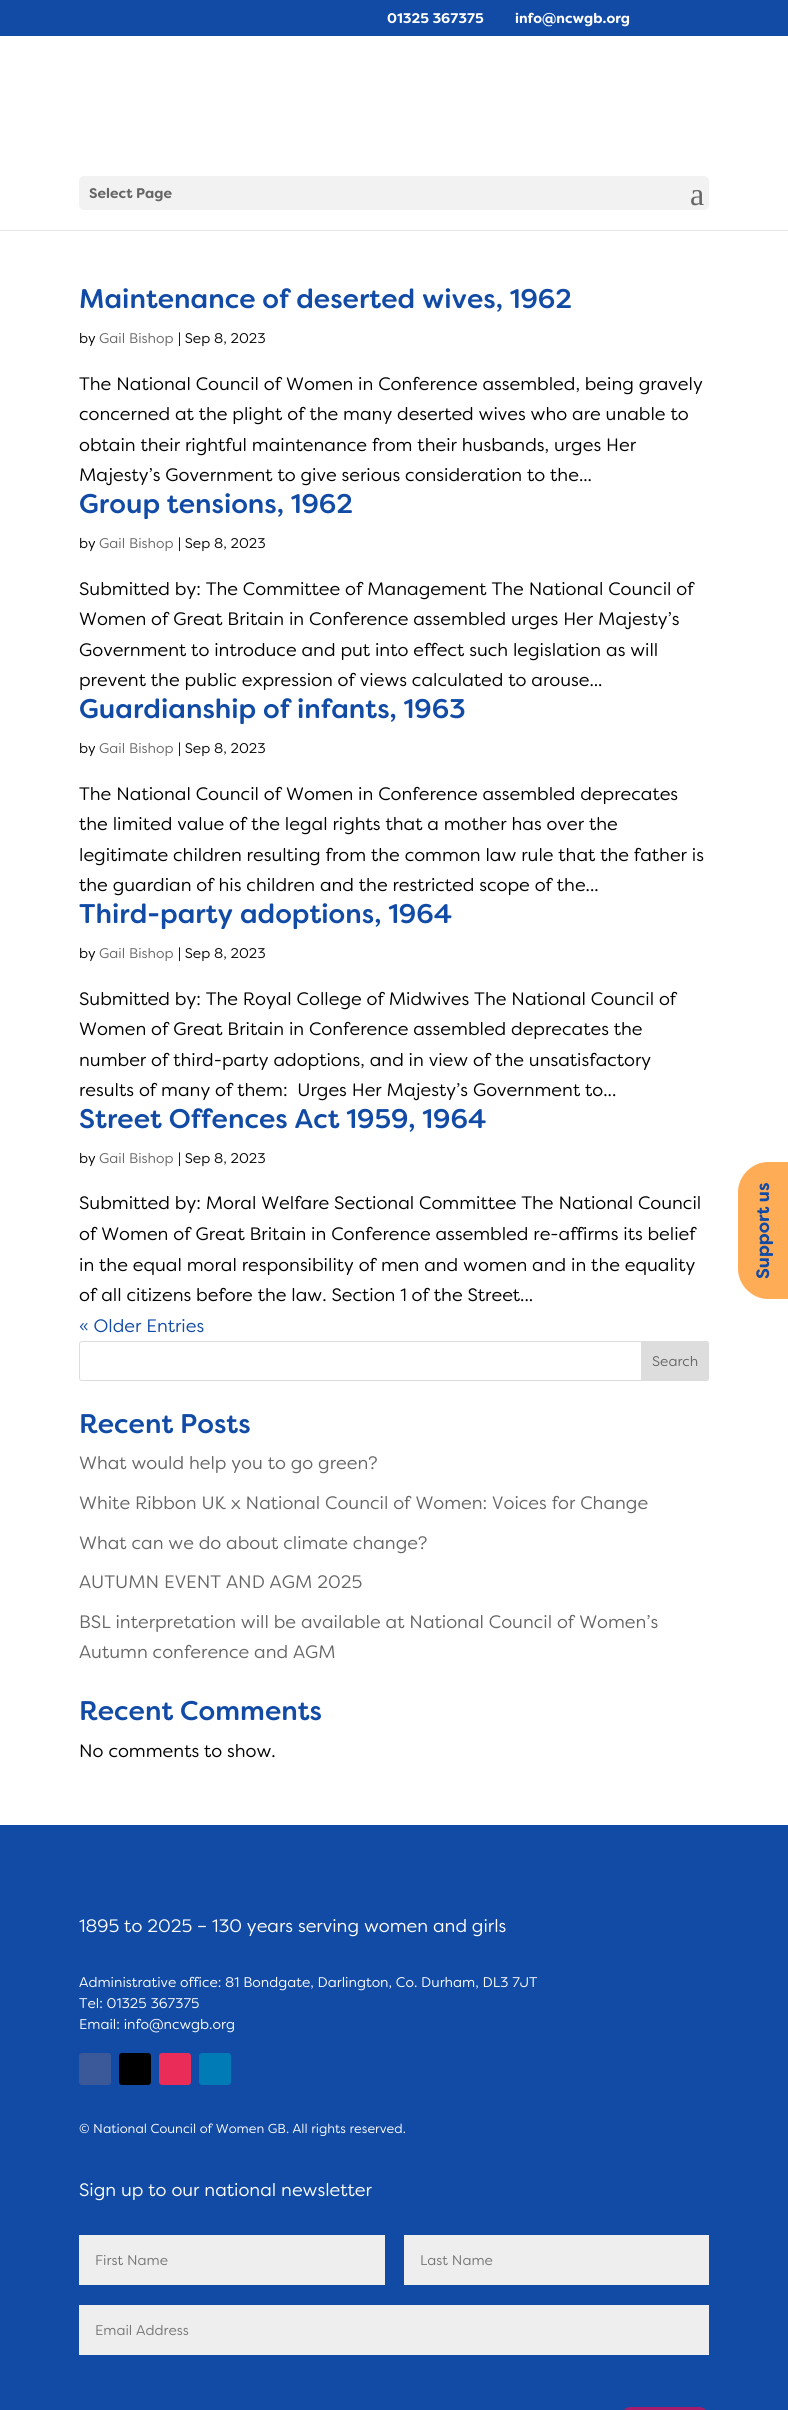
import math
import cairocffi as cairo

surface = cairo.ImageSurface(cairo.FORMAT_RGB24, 788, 2410)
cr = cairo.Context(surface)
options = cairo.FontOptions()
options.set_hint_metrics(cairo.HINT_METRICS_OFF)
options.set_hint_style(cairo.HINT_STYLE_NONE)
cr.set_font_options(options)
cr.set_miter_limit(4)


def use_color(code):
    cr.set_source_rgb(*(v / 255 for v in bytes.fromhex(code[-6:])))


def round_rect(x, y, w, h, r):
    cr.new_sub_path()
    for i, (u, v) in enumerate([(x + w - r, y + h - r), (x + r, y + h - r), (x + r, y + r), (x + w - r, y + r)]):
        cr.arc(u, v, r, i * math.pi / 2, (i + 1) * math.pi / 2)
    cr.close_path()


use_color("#ffffff")
cr.paint()
use_color("#114ba5")
cr.rectangle(0, 0, 788, 36)
cr.fill()
cr.select_font_face("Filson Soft", cairo.FONT_SLANT_NORMAL, cairo.FONT_WEIGHT_BOLD)
cr.set_font_size(14)
use_color("#ffffff")
cr.move_to(387, 23)
cr.show_text("01325 367375")
cr.move_to(515, 23)
cr.show_text("info@ncwgb.org")
use_color("#e6e6e6")
cr.rectangle(0, 230, 788, 1)
cr.fill()
use_color("#f2f2f2")
round_rect(79, 176, 630, 34, 5)
cr.fill()
use_color("#666666")
cr.move_to(89, 198)
cr.show_text("Select Page")
cr.select_font_face("Liberation Serif")
cr.set_font_size(32)
cr.move_to(690, 205)
cr.show_text("a")
cr.select_font_face("Filson Soft Medium")
cr.set_font_size(27)
use_color("#114ba5")
cr.move_to(79, 308)
cr.show_text("Maintenance of deserted wives, 1962")
cr.select_font_face("Filson Soft")
cr.set_font_size(14)
use_color("#000000")
cr.move_to(79, 343)
cr.show_text("by")
use_color("#666666")
cr.move_to(99, 343)
cr.show_text("Gail Bishop")
use_color("#000000")
cr.move_to(178, 343)
cr.show_text("| Sep 8, 2023")
cr.set_font_size(18)
cr.move_to(79, 390)
cr.show_text("The National Council of Women in Conference assembled, being gravely")
cr.move_to(79, 420)
cr.show_text("concerned at the plight of the many deserted wives who are unable to")
cr.move_to(79, 451)
cr.show_text("obtain their rightful maintenance from their husbands, urges Her")
cr.move_to(79, 481)
cr.show_text("Majesty’s Government to give serious consideration to the...")
cr.select_font_face("Filson Soft Medium")
cr.set_font_size(27)
use_color("#114ba5")
cr.move_to(79, 513)
cr.show_text("Group tensions, 1962")
cr.select_font_face("Filson Soft")
cr.set_font_size(14)
use_color("#000000")
cr.move_to(79, 548)
cr.show_text("by")
use_color("#666666")
cr.move_to(99, 548)
cr.show_text("Gail Bishop")
use_color("#000000")
cr.move_to(178, 548)
cr.show_text("| Sep 8, 2023")
cr.set_font_size(18)
cr.move_to(79, 595)
cr.show_text("Submitted by: The Committee of Management The National Council of")
cr.move_to(79, 625)
cr.show_text("Women of Great Britain in Conference assembled urges Her Majesty’s")
cr.move_to(79, 656)
cr.show_text("Government to introduce and put into effect such legislation as will")
cr.move_to(79, 686)
cr.show_text("prevent the public expression of views calculated to arouse...")
cr.select_font_face("Filson Soft Medium")
cr.set_font_size(27)
use_color("#114ba5")
cr.move_to(79, 718)
cr.show_text("Guardianship of infants, 1963")
cr.select_font_face("Filson Soft")
cr.set_font_size(14)
use_color("#000000")
cr.move_to(79, 753)
cr.show_text("by")
use_color("#666666")
cr.move_to(99, 753)
cr.show_text("Gail Bishop")
use_color("#000000")
cr.move_to(178, 753)
cr.show_text("| Sep 8, 2023")
cr.set_font_size(18)
cr.move_to(79, 800)
cr.show_text("The National Council of Women in Conference assembled deprecates")
cr.move_to(79, 830)
cr.show_text("the limited value of the legal rights that a mother has over the")
cr.move_to(79, 861)
cr.show_text("legitimate children resulting from the common law rule that the father is")
cr.move_to(79, 891)
cr.show_text("the guardian of his children and the restricted scope of the...")
cr.select_font_face("Filson Soft Medium")
cr.set_font_size(27)
use_color("#114ba5")
cr.move_to(79, 923)
cr.show_text("Third-party adoptions, 1964")
cr.select_font_face("Filson Soft")
cr.set_font_size(14)
use_color("#000000")
cr.move_to(79, 958)
cr.show_text("by")
use_color("#666666")
cr.move_to(99, 958)
cr.show_text("Gail Bishop")
use_color("#000000")
cr.move_to(178, 958)
cr.show_text("| Sep 8, 2023")
cr.set_font_size(18)
cr.move_to(79, 1005)
cr.show_text("Submitted by: The Royal College of Midwives The National Council of")
cr.move_to(79, 1035)
cr.show_text("Women of Great Britain in Conference assembled deprecates the")
cr.move_to(79, 1066)
cr.show_text("number of third-party adoptions, and in view of the unsatisfactory")
cr.move_to(79, 1096)
cr.show_text("results of many of them:  Urges Her Majesty’s Government to...")
cr.select_font_face("Filson Soft Medium")
cr.set_font_size(27)
use_color("#114ba5")
cr.move_to(79, 1128)
cr.show_text("Street Offences Act 1959, 1964")
cr.select_font_face("Filson Soft")
cr.set_font_size(14)
use_color("#000000")
cr.move_to(79, 1163)
cr.show_text("by")
use_color("#666666")
cr.move_to(99, 1163)
cr.show_text("Gail Bishop")
use_color("#000000")
cr.move_to(178, 1163)
cr.show_text("| Sep 8, 2023")
cr.set_font_size(18)
cr.move_to(79, 1209)
cr.show_text("Submitted by: Moral Welfare Sectional Committee The National Council")
cr.move_to(79, 1240)
cr.show_text("of Women of Great Britain in Conference assembled re-affirms its belief")
cr.move_to(79, 1271)
cr.show_text("in the equal moral responsibility of men and women and in the equality")
cr.move_to(79, 1301)
cr.show_text("of all citizens before the law. Section 1 of the Street...")
use_color("#114ba5")
cr.move_to(79, 1332)
cr.show_text("« Older Entries")
round_rect(79.5, 1341.5, 629, 39, 2.5)
use_color("#dddddd")
cr.set_line_width(1)
cr.stroke()
cr.new_path()
cr.move_to(641.5, 1341.5)
cr.line_to(706, 1341.5)
cr.curve_to(707.5, 1341.5, 708.5, 1342.5, 708.5, 1344)
cr.line_to(708.5, 1378)
cr.curve_to(708.5, 1379.5, 707.5, 1380.5, 706, 1380.5)
cr.line_to(641.5, 1380.5)
cr.close_path()
cr.fill_preserve()
cr.stroke()
cr.set_font_size(14)
use_color("#666666")
cr.move_to(652, 1366)
cr.show_text("Search")
cr.select_font_face("Filson Soft Medium")
cr.set_font_size(27)
use_color("#114ba5")
cr.move_to(79, 1433)
cr.show_text("Recent Posts")
cr.select_font_face("Filson Soft")
cr.set_font_size(18)
use_color("#666666")
cr.move_to(79, 1469)
cr.show_text("What would help you to go green?")
cr.move_to(79, 1509)
cr.show_text("White Ribbon UK x National Council of Women: Voices for Change")
cr.move_to(79, 1549)
cr.show_text("What can we do about climate change?")
cr.move_to(79, 1588)
cr.show_text("AUTUMN EVENT AND AGM 2025")
cr.move_to(79, 1628)
cr.show_text("BSL interpretation will be available at National Council of Women’s")
cr.move_to(79, 1658)
cr.show_text("Autumn conference and AGM")
cr.select_font_face("Filson Soft Medium")
cr.set_font_size(27)
use_color("#114ba5")
cr.move_to(79, 1720)
cr.show_text("Recent Comments")
cr.select_font_face("Filson Soft")
cr.set_font_size(18)
use_color("#000000")
cr.move_to(79, 1757)
cr.show_text("No comments to show.")
use_color("#114ba5")
cr.rectangle(0, 1825, 788, 585)
cr.fill()
use_color("#ffac56")
cr.new_path()
cr.move_to(738, 1269)
cr.line_to(738, 1192)
cr.curve_to(738, 1176, 752, 1162, 768, 1162)
cr.line_to(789, 1162)
cr.line_to(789, 1299)
cr.line_to(768, 1299)
cr.curve_to(752, 1299, 738, 1285, 738, 1269)
cr.close_path()
cr.fill()
cr.select_font_face("Filson Soft", cairo.FONT_SLANT_NORMAL, cairo.FONT_WEIGHT_BOLD)
use_color("#114ba5")
cr.save()
cr.translate(769, 1279)
cr.rotate(-90 * math.pi / 180)
cr.move_to(0, 0)
cr.show_text("Support us")
cr.restore()
cr.select_font_face("Filson Soft")
use_color("#ffffff")
cr.move_to(79, 1932)
cr.show_text("1895 to 2025 – 130 years serving women and girls")
cr.set_font_size(14)
cr.move_to(79, 1987)
cr.show_text("Administrative office: 81 Bondgate, Darlington, Co. Durham, DL3 7JT")
cr.move_to(79, 2008)
cr.show_text("Tel: 01325 367375")
cr.move_to(79, 2029)
cr.show_text("Email: info@ncwgb.org")
use_color("#3b5998")
round_rect(79, 2053, 32, 32, 3)
cr.fill()
use_color("#000000")
round_rect(119, 2053, 32, 32, 3)
cr.fill()
use_color("#ea2c59")
round_rect(159, 2053, 32, 32, 3)
cr.fill()
use_color("#007bb6")
round_rect(199, 2053, 32, 32, 3)
cr.fill()
cr.set_font_size(13)
use_color("#ffffff")
cr.move_to(79, 2133)
cr.show_text("© National Council of Women GB. All rights reserved.")
cr.set_font_size(18)
cr.move_to(79, 2196)
cr.show_text("Sign up to our national newsletter")
use_color("#eeeeee")
cr.rectangle(79, 2235, 306, 50)
cr.fill()
cr.set_font_size(14)
use_color("#757575")
cr.move_to(95, 2265)
cr.show_text("First Name")
use_color("#eeeeee")
cr.rectangle(404, 2235, 305, 50)
cr.fill()
use_color("#757575")
cr.move_to(420, 2265)
cr.show_text("Last Name")
use_color("#eeeeee")
cr.rectangle(79, 2305, 630, 50)
cr.fill()
use_color("#757575")
cr.move_to(95, 2335)
cr.show_text("Email Address")
use_color("#a61c6c")
round_rect(621, 2407, 88, 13, 10)
cr.fill()
surface.write_to_png("result.png")
